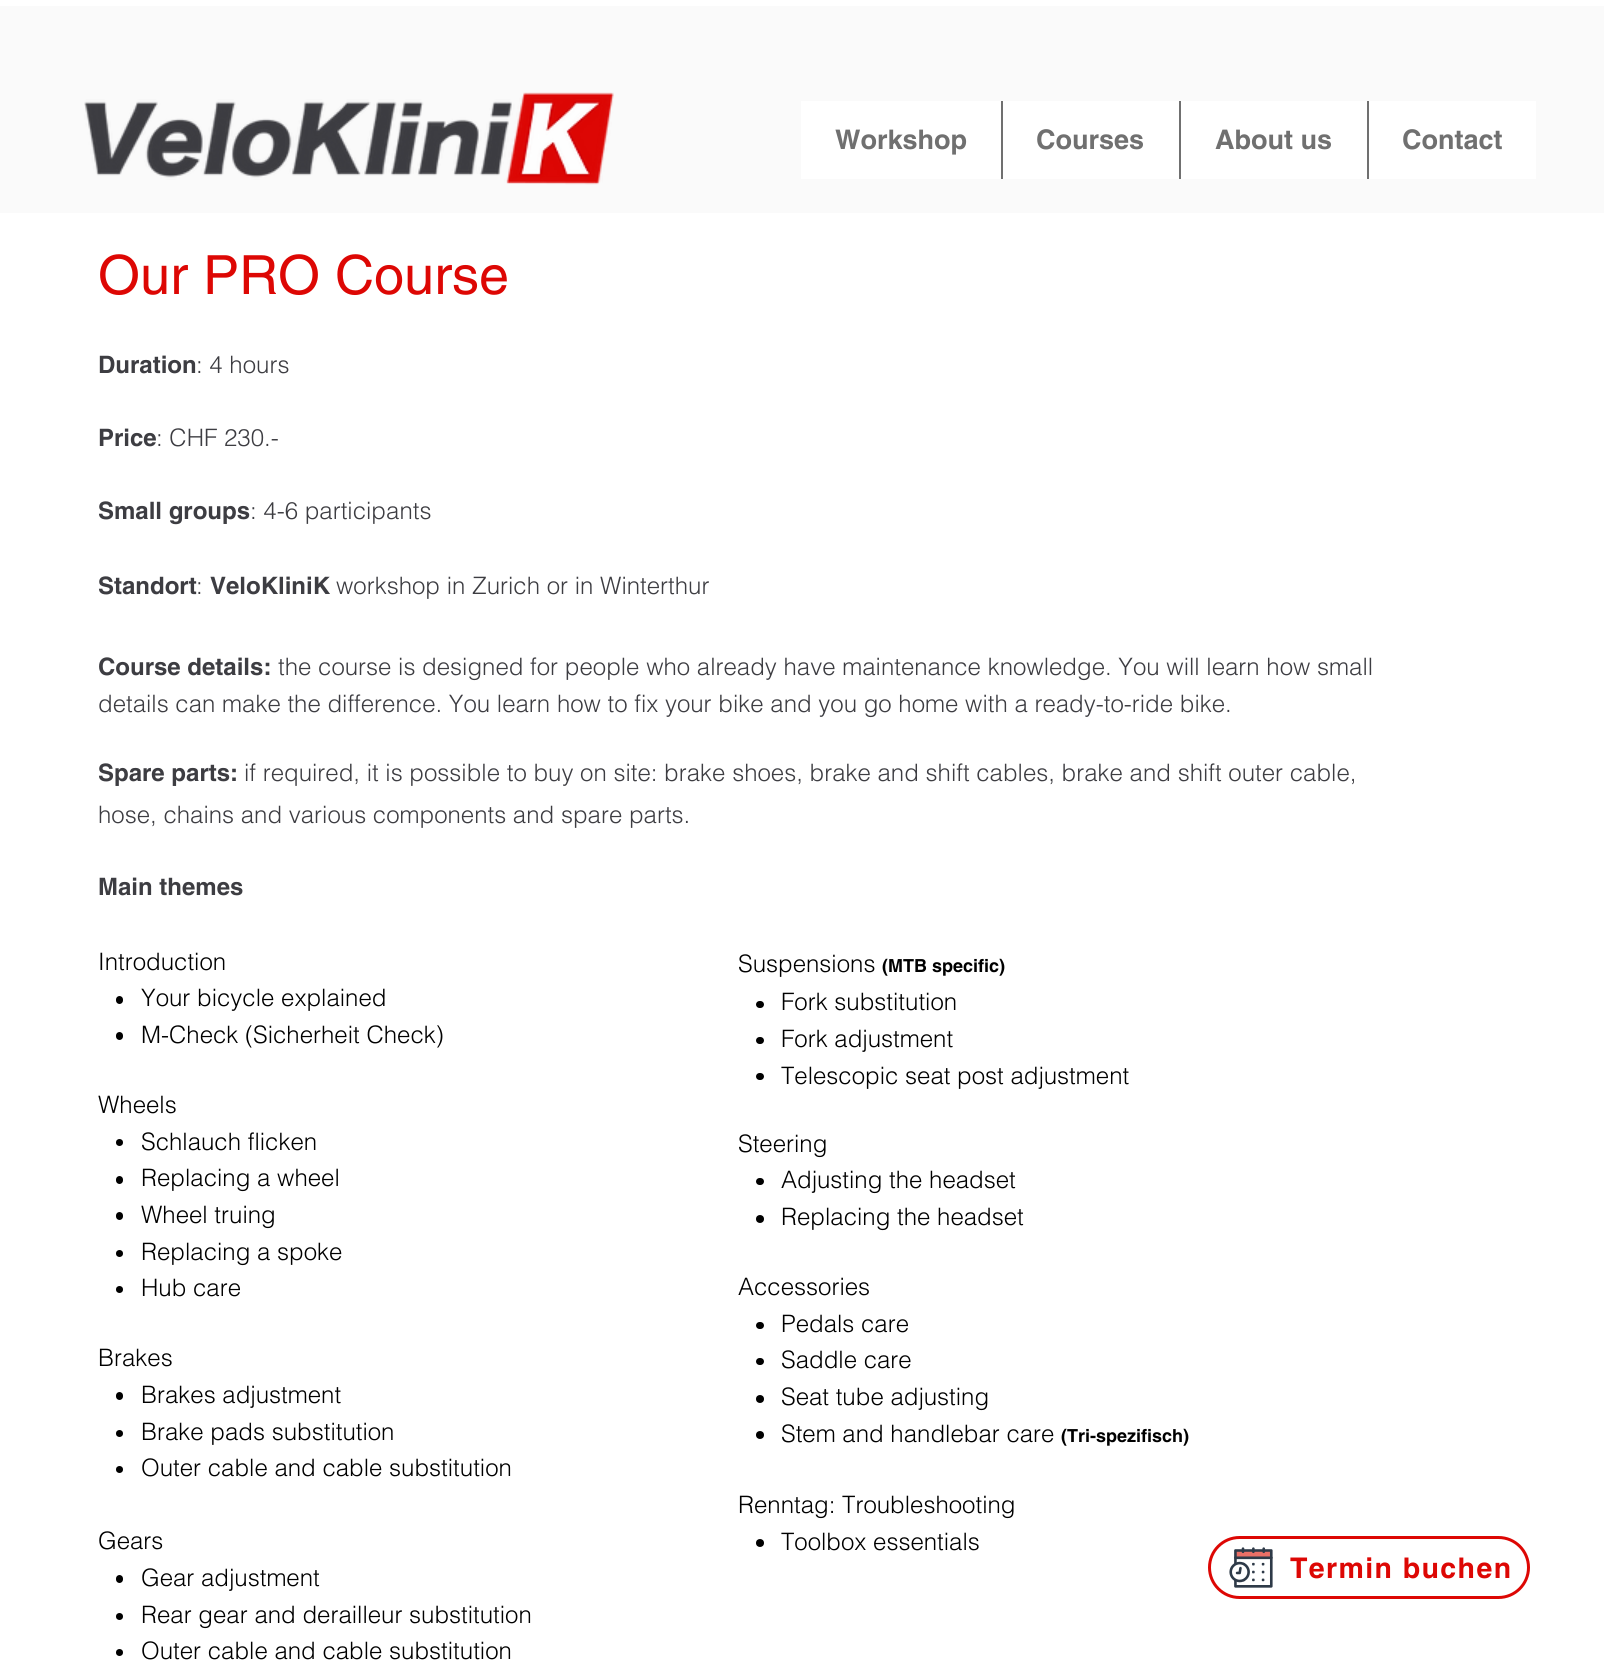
import math
import cairocffi as cairo

surface = cairo.ImageSurface(cairo.FORMAT_RGB24, 1604, 1673)
cr = cairo.Context(surface)
options = cairo.FontOptions()
options.set_hint_metrics(cairo.HINT_METRICS_OFF)
options.set_hint_style(cairo.HINT_STYLE_NONE)
cr.set_font_options(options)
cr.set_miter_limit(4)


def use_color(code):
    cr.set_source_rgb(*(v / 255 for v in bytes.fromhex(code[-6:])))


def spaced_text(x, y, s, letter, word):
    cr.move_to(x, y)
    for ch in s:
        cr.show_text(ch)
        cr.rel_move_to(letter + word * (ch == ' '), 0)


def round_rect(x, y, w, h, r):
    cr.new_sub_path()
    for i, (u, v) in enumerate([(x + w - r, y + h - r), (x + r, y + h - r), (x + r, y + r), (x + w - r, y + r)]):
        cr.arc(u, v, r, i * math.pi / 2, (i + 1) * math.pi / 2)
    cr.close_path()


def picture(path, x, y, w, h):
    cr.save()
    cr.set_source_surface(cairo.ImageSurface.create_from_png(path), x, y)
    cr.rectangle(x, y, w, h)
    cr.fill()
    cr.restore()


use_color("#ffffff")
cr.paint()
use_color("#fafafa")
cr.rectangle(0, 6, 1604, 207)
cr.fill()
picture("img1.png", 84, 92, 530, 93)
use_color("#ffffff")
cr.rectangle(801, 101, 735, 78)
cr.fill()
cr.select_font_face("helvetica", cairo.FONT_SLANT_NORMAL, cairo.FONT_WEIGHT_BOLD)
cr.set_font_size(27)
use_color("#707070")
cr.move_to(835, 149)
cr.show_text("Workshop")
cr.rectangle(1001, 101, 2, 78)
cr.fill()
cr.move_to(1036, 149)
cr.show_text("Courses")
cr.rectangle(1179, 101, 2, 78)
cr.fill()
cr.move_to(1215, 149)
cr.show_text("About us")
cr.rectangle(1367, 101, 2, 78)
cr.fill()
cr.move_to(1402, 149)
cr.show_text("Contact")
cr.select_font_face("helvetica")
cr.set_font_size(54)
use_color("#dd0704")
cr.move_to(98, 294)
cr.show_text("Our PRO Course")
cr.select_font_face("helvetica", cairo.FONT_SLANT_NORMAL, cairo.FONT_WEIGHT_BOLD)
cr.set_font_size(24)
use_color("#3d3d42")
cr.move_to(98, 373)
cr.show_text("Duration")
cr.select_font_face("helvetica Light")
cr.move_to(196, 373)
cr.show_text(": 4 hours")
cr.select_font_face("helvetica", cairo.FONT_SLANT_NORMAL, cairo.FONT_WEIGHT_BOLD)
cr.move_to(98, 446)
cr.show_text("Price")
cr.select_font_face("helvetica Light")
cr.move_to(156, 446)
cr.show_text(": CHF 230.-")
cr.select_font_face("helvetica", cairo.FONT_SLANT_NORMAL, cairo.FONT_WEIGHT_BOLD)
cr.move_to(98, 519)
cr.show_text("Small groups")
cr.select_font_face("helvetica Light")
cr.move_to(250, 519)
cr.show_text(": 4-6 participants")
cr.select_font_face("helvetica", cairo.FONT_SLANT_NORMAL, cairo.FONT_WEIGHT_BOLD)
cr.move_to(98, 594)
cr.show_text("Standort")
cr.select_font_face("helvetica Light")
cr.move_to(196, 594)
cr.show_text(":")
cr.select_font_face("helvetica", cairo.FONT_SLANT_NORMAL, cairo.FONT_WEIGHT_BOLD)
cr.move_to(210, 594)
cr.show_text("VeloKliniK")
cr.select_font_face("helvetica Light")
cr.move_to(336, 594)
cr.show_text("workshop in Zurich or in Winterthur")
cr.select_font_face("helvetica", cairo.FONT_SLANT_NORMAL, cairo.FONT_WEIGHT_BOLD)
cr.move_to(98, 675)
cr.show_text("Course details:")
cr.select_font_face("helvetica Light")
cr.move_to(278, 675)
cr.show_text("the course is designed for people who already have maintenance knowledge. You will learn how small")
cr.move_to(98, 712)
cr.show_text("details can make the difference. You learn how to fix your bike and you go home with a ready-to-ride bike.")
cr.select_font_face("helvetica", cairo.FONT_SLANT_NORMAL, cairo.FONT_WEIGHT_BOLD)
cr.move_to(98, 781)
cr.show_text("Spare parts:")
cr.select_font_face("helvetica Light")
cr.move_to(244, 781)
cr.show_text("if required, it is possible to buy on site: brake shoes, brake and shift cables, brake and shift outer cable,")
cr.move_to(98, 823)
cr.show_text("hose, chains and various components and spare parts.")
cr.select_font_face("helvetica", cairo.FONT_SLANT_NORMAL, cairo.FONT_WEIGHT_BOLD)
cr.move_to(98, 895)
cr.show_text("Main themes")
cr.select_font_face("helvetica Light")
use_color("#000000")
cr.move_to(98, 970)
cr.show_text("Introduction")
round_rect(116, 996, 7, 8, 3.5)
cr.fill()
cr.move_to(141, 1006)
cr.show_text("Your bicycle explained")
round_rect(116, 1032, 7, 8, 3.5)
cr.fill()
cr.move_to(141, 1043)
cr.show_text("M-Check (Sicherheit Check)")
cr.move_to(98, 1113)
cr.show_text("Wheels")
cr.new_path()
cr.arc(119.5, 1142.5, 3.5, 0, 2 * math.pi)
cr.fill()
cr.move_to(141, 1150)
cr.show_text("Schlauch flicken")
round_rect(116, 1176, 7, 8, 3.5)
cr.fill()
cr.move_to(141, 1186)
cr.show_text("Replacing a wheel")
round_rect(116, 1212, 7, 8, 3.5)
cr.fill()
cr.move_to(141, 1223)
cr.show_text("Wheel truing")
cr.new_path()
cr.arc(119.5, 1253.5, 3.5, 0, 2 * math.pi)
cr.fill()
cr.move_to(141, 1260)
cr.show_text("Replacing a spoke")
cr.new_path()
cr.arc(119.5, 1289.5, 3.5, 0, 2 * math.pi)
cr.fill()
cr.move_to(141, 1296)
cr.show_text("Hub care")
cr.move_to(98, 1366)
cr.show_text("Brakes")
round_rect(116, 1392, 7, 8, 3.5)
cr.fill()
cr.move_to(141, 1403)
cr.show_text("Brakes adjustment")
cr.new_path()
cr.arc(119.5, 1433.5, 3.5, 0, 2 * math.pi)
cr.fill()
cr.move_to(141, 1440)
cr.show_text("Brake pads substitution")
cr.new_path()
cr.arc(119.5, 1469.5, 3.5, 0, 2 * math.pi)
cr.fill()
cr.move_to(141, 1476)
cr.show_text("Outer cable and cable substitution")
cr.move_to(98, 1549)
cr.show_text("Gears")
round_rect(116, 1575, 7, 8, 3.5)
cr.fill()
cr.move_to(141, 1586)
cr.show_text("Gear adjustment")
cr.new_path()
cr.arc(119.5, 1616.5, 3.5, 0, 2 * math.pi)
cr.fill()
cr.move_to(141, 1623)
cr.show_text("Rear gear and derailleur substitution")
cr.new_path()
cr.arc(119.5, 1652.5, 3.5, 0, 2 * math.pi)
cr.fill()
cr.move_to(141, 1659)
cr.show_text("Outer cable and cable substitution")
cr.move_to(738, 972)
cr.show_text("Suspensions")
cr.select_font_face("helvetica", cairo.FONT_SLANT_NORMAL, cairo.FONT_WEIGHT_BOLD)
cr.set_font_size(18)
cr.move_to(882, 972)
cr.show_text("(MTB specific)")
round_rect(756, 1001, 8, 7, 3.5)
cr.fill()
cr.select_font_face("helvetica Light")
cr.set_font_size(24)
cr.move_to(781, 1010)
cr.show_text("Fork substitution")
round_rect(756, 1037, 8, 7, 3.5)
cr.fill()
cr.move_to(781, 1047)
cr.show_text("Fork adjustment")
round_rect(756, 1073, 8, 7, 3.5)
cr.fill()
cr.move_to(781, 1084)
cr.show_text("Telescopic seat post adjustment")
cr.move_to(738, 1152)
cr.show_text("Steering")
round_rect(756, 1178, 8, 7, 3.5)
cr.fill()
cr.move_to(781, 1188)
cr.show_text("Adjusting the headset")
cr.new_path()
cr.arc(760, 1219, 4, 0, 2 * math.pi)
cr.fill()
cr.move_to(781, 1225)
cr.show_text("Replacing the headset")
cr.move_to(738, 1295)
cr.show_text("Accessories")
round_rect(756, 1322, 8, 7, 3.5)
cr.fill()
cr.move_to(781, 1332)
cr.show_text("Pedals care")
round_rect(756, 1358, 8, 7, 3.5)
cr.fill()
cr.move_to(781, 1368)
cr.show_text("Saddle care")
cr.new_path()
cr.arc(760, 1399, 4, 0, 2 * math.pi)
cr.fill()
cr.move_to(781, 1405)
cr.show_text("Seat tube adjusting")
cr.new_path()
cr.arc(760, 1435, 4, 0, 2 * math.pi)
cr.fill()
cr.move_to(781, 1442)
cr.show_text("Stem and handlebar care")
cr.select_font_face("helvetica", cairo.FONT_SLANT_NORMAL, cairo.FONT_WEIGHT_BOLD)
cr.set_font_size(18)
cr.move_to(1061, 1442)
cr.show_text("(Tri-spezifisch)")
cr.select_font_face("helvetica Light")
cr.set_font_size(24)
cr.move_to(738, 1513)
cr.show_text("Renntag: Troubleshooting")
cr.new_path()
cr.arc(760, 1543, 4, 0, 2 * math.pi)
cr.fill()
cr.move_to(781, 1550)
cr.show_text("Toolbox essentials")
round_rect(1209.5, 1537.5, 319, 60, 30)
use_color("#dd0704")
cr.set_line_width(3)
cr.stroke()
picture("img2.png", 1229, 1547, 44, 41)
cr.select_font_face("helvetica", cairo.FONT_SLANT_NORMAL, cairo.FONT_WEIGHT_BOLD)
cr.set_font_size(28.5)
spaced_text(1290, 1578, "Termin buchen", 1.4, 0)
surface.write_to_png("result.png")
